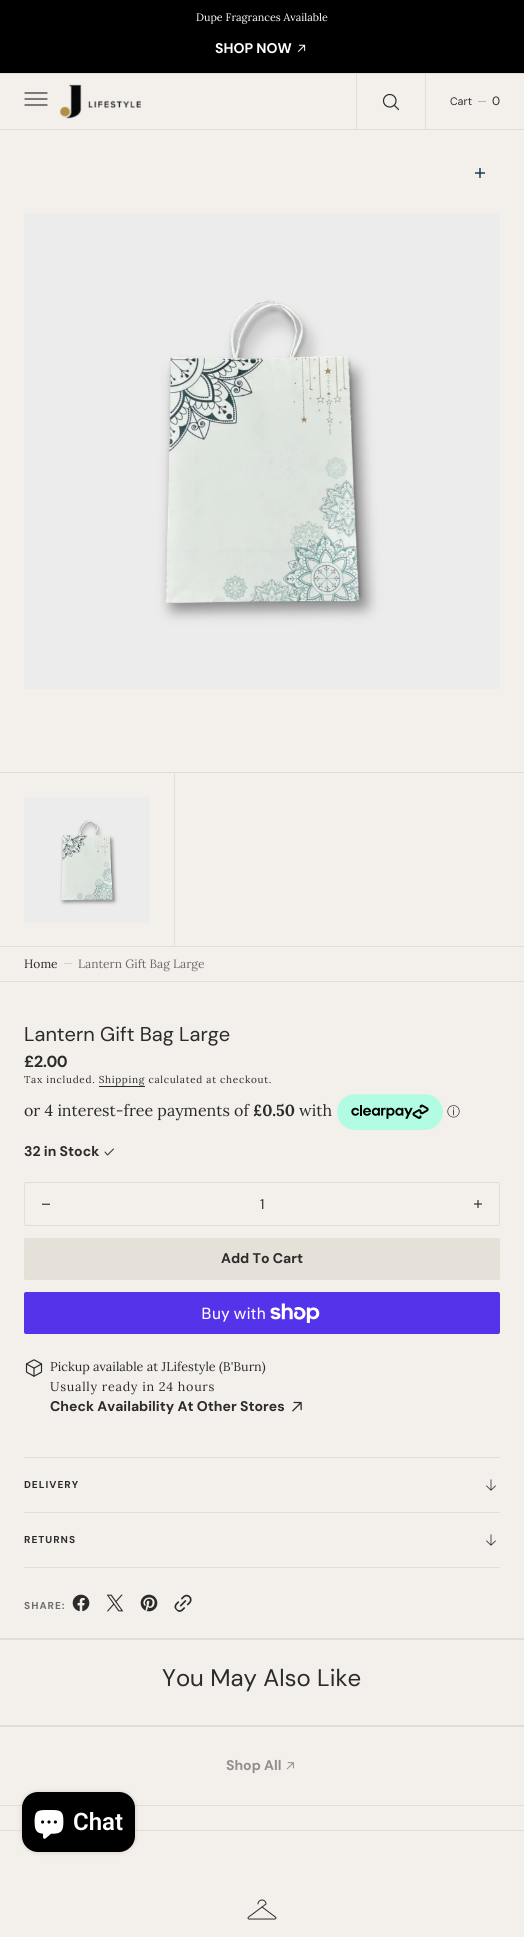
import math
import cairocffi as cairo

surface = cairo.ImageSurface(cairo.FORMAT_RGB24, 524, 1937)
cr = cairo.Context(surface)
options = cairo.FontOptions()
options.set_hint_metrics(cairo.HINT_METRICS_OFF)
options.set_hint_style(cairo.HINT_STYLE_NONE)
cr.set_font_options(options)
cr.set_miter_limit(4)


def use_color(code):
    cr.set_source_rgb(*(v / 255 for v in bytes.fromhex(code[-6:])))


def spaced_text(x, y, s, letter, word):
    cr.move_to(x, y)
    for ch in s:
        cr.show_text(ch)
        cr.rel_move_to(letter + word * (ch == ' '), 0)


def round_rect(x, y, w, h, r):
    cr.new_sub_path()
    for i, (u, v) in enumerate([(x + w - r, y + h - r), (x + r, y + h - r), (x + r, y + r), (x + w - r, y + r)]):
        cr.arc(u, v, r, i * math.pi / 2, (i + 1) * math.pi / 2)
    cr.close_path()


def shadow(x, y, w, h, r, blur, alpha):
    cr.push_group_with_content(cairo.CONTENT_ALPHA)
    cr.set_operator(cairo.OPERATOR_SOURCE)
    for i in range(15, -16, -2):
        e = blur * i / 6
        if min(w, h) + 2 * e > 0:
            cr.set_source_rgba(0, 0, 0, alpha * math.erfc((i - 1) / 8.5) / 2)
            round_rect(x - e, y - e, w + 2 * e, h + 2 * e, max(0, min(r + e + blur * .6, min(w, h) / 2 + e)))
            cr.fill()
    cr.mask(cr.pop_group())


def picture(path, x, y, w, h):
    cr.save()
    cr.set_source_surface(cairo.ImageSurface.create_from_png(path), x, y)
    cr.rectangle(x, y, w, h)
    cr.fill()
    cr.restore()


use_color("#f3f0ec")
cr.paint()
use_color("#000000")
cr.rectangle(0, 0, 524, 73)
cr.fill()
use_color("#e2ddd5")
cr.rectangle(0, 73, 524, 1)
cr.fill()
cr.select_font_face("Lora")
cr.set_font_size(10.75)
use_color("#ffffff")
cr.move_to(196, 21)
cr.show_text("Dupe Fragrances Available")
cr.select_font_face("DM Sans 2", cairo.FONT_SLANT_NORMAL, cairo.FONT_WEIGHT_BOLD)
cr.set_font_size(14)
cr.move_to(215, 53)
cr.show_text("SHOP NOW")
picture("img1.png", 297, 44, 9, 8)
use_color("#e2ddd5")
cr.rectangle(0, 129, 524, 1)
cr.fill()
cr.new_path()
cr.move_to(25, 93)
cr.line_to(47, 93)
cr.move_to(25, 99)
cr.line_to(47, 99)
cr.move_to(25, 105)
cr.line_to(47, 105)
use_color("#2b2b2b")
cr.set_line_width(1.2)
cr.set_line_cap(cairo.LINE_CAP_ROUND)
cr.stroke()
picture("img2.png", 60, 84, 81, 35)
use_color("#e2ddd5")
cr.rectangle(356, 74, 1, 55)
cr.fill()
picture("img3.png", 382, 93, 18, 18)
cr.rectangle(425, 74, 1, 55)
cr.fill()
cr.select_font_face("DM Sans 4")
cr.set_font_size(10.75)
use_color("#2b2b2b")
cr.move_to(450, 105)
cr.show_text("Cart")
use_color("#b7b5b2")
cr.rectangle(478, 101, 8, 1)
cr.fill()
cr.select_font_face("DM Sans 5")
cr.set_font_size(12)
use_color("#2b2b2b")
cr.move_to(492, 105)
cr.show_text("0")
use_color("#e2ddd5")
cr.rectangle(0, 1638, 524, 2)
cr.fill()
picture("img4.png", 475, 168, 10, 10)
picture("img5.png", 24, 213, 476, 476)
cr.rectangle(0, 772, 524, 1)
cr.fill()
cr.rectangle(174, 773, 1, 174)
cr.fill()
picture("img6.png", 24, 797, 126, 126)
cr.rectangle(0, 946, 524, 1)
cr.fill()
cr.rectangle(0, 981, 524, 1)
cr.fill()
cr.select_font_face("Lora")
use_color("#2b2b2b")
cr.move_to(24, 968)
cr.show_text("Home")
use_color("#d5d2cf")
cr.rectangle(64, 963, 8, 1)
cr.fill()
use_color("#6b6b6b")
cr.move_to(78, 968)
cr.show_text("Lantern Gift Bag Large")
cr.select_font_face("DM Sans")
cr.set_font_size(20)
use_color("#2b2b2b")
cr.move_to(24, 1041)
cr.show_text("Lantern Gift Bag Large")
cr.select_font_face("DM Sans", cairo.FONT_SLANT_NORMAL, cairo.FONT_WEIGHT_BOLD)
cr.set_font_size(16)
spaced_text(24, 1067, "£2.00", -0.5, 0)
cr.select_font_face("Lora")
cr.set_font_size(10)
spaced_text(24, 1083, "Tax included. Shipping calculated at checkout.", 0.7, 0)
cr.rectangle(99, 1086, 46, 1)
cr.fill()
cr.set_font_size(16)
cr.move_to(24, 1116)
cr.show_text("or 4 interest-free payments of")
cr.select_font_face("Lora", cairo.FONT_SLANT_NORMAL, cairo.FONT_WEIGHT_BOLD)
cr.move_to(253, 1116)
cr.show_text("£0.50")
cr.select_font_face("Lora")
cr.move_to(299, 1116)
cr.show_text("with")
picture("img7.png", 337, 1094, 106, 36)
cr.select_font_face("WenQuanYi Zen Hei Medium")
cr.set_font_size(13)
cr.move_to(447, 1116)
cr.show_text("ⓘ")
cr.select_font_face("DM Sans 2", cairo.FONT_SLANT_NORMAL, cairo.FONT_WEIGHT_BOLD)
cr.set_font_size(14)
cr.move_to(24, 1156)
cr.show_text("32 in Stock")
cr.new_path()
cr.move_to(105, 1152)
cr.line_to(107.5, 1155)
cr.line_to(113.5, 1149)
cr.set_line_width(1)
cr.set_line_join(cairo.LINE_JOIN_ROUND)
cr.stroke()
round_rect(24.5, 1182.5, 475, 43, 1.5)
use_color("#e2ddd5")
cr.set_line_cap(cairo.LINE_CAP_BUTT)
cr.set_line_join(cairo.LINE_JOIN_MITER)
cr.stroke()
picture("img8.png", 42, 1203, 8, 2)
cr.select_font_face("DM Sans 2")
use_color("#2b2b2b")
cr.move_to(260, 1209)
cr.show_text("1")
picture("img9.png", 474, 1200, 8, 8)
use_color("#e5e0d8")
round_rect(24, 1238, 476, 42, 2)
cr.fill()
cr.select_font_face("DM Sans 2", cairo.FONT_SLANT_NORMAL, cairo.FONT_WEIGHT_BOLD)
use_color("#2b2b2b")
cr.move_to(221, 1263)
cr.show_text("Add To Cart")
use_color("#5433eb")
round_rect(24, 1292, 476, 42, 2)
cr.fill()
cr.select_font_face("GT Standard")
cr.set_font_size(16)
use_color("#ffffff")
cr.move_to(201, 1319)
cr.show_text("Buy with")
picture("img10.png", 270, 1303, 50, 20)
picture("img11.png", 25, 1359, 18, 18)
cr.select_font_face("Lora")
cr.set_font_size(12.6)
use_color("#2b2b2b")
cr.move_to(50, 1371)
cr.show_text("Pickup available at JLifestyle (B'Burn)")
spaced_text(50, 1391, "Usually ready in 24 hours", 0.7, 0)
cr.select_font_face("DM Sans 2", cairo.FONT_SLANT_NORMAL, cairo.FONT_WEIGHT_BOLD)
cr.set_font_size(14)
cr.move_to(50, 1411)
cr.show_text("Check Availability At Other Stores")
picture("img12.png", 292, 1401, 10, 11)
use_color("#e2ddd5")
cr.rectangle(24, 1457, 476, 1)
cr.fill()
cr.rectangle(24, 1512, 476, 1)
cr.fill()
cr.select_font_face("DM Sans", cairo.FONT_SLANT_NORMAL, cairo.FONT_WEIGHT_BOLD)
cr.set_font_size(10)
use_color("#2b2b2b")
spaced_text(24, 1488, "DELIVERY", 1, 0)
picture("img13.png", 486, 1479, 10, 12)
use_color("#e2ddd5")
cr.rectangle(24, 1567, 476, 1)
cr.fill()
use_color("#2b2b2b")
spaced_text(24, 1543, "RETURNS", 1, 0)
picture("img13.png", 486, 1534, 10, 12)
use_color("#6b6b6b")
spaced_text(24, 1609, "SHARE:", 1, 0)
picture("img14.png", 72, 1594, 18, 18)
picture("img15.png", 106, 1594, 18, 18)
picture("img16.png", 140, 1594, 18, 18)
picture("img17.png", 174, 1594, 18, 18)
use_color("#e2ddd5")
cr.rectangle(0, 1805, 524, 1)
cr.fill()
cr.rectangle(0, 1725, 524, 2)
cr.fill()
cr.select_font_face("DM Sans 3")
cr.set_font_size(24)
use_color("#2b2b2b")
cr.move_to(162, 1686)
cr.show_text("You May Also Like")
cr.select_font_face("DM Sans 2", cairo.FONT_SLANT_NORMAL, cairo.FONT_WEIGHT_BOLD)
cr.set_font_size(14)
use_color("#8f8e8c")
cr.move_to(226, 1770)
cr.show_text("Shop All")
picture("img18.png", 286, 1762, 8, 8)
use_color("#e2ddd5")
cr.rectangle(0, 1830, 524, 1)
cr.fill()
use_color("#000000")
shadow(22, 1792, 113, 60, 16, 2.5, 0.15)
use_color("#000000")
round_rect(22, 1792, 113, 60, 16)
cr.fill()
picture("img19.png", 34, 1810, 30, 29)
cr.select_font_face("Roboto SemiBold")
cr.set_font_size(24)
use_color("#ffffff")
cr.move_to(73, 1830)
cr.show_text("Chat")
picture("img20.png", 247, 1899, 30, 21)
surface.write_to_png("result.png")
